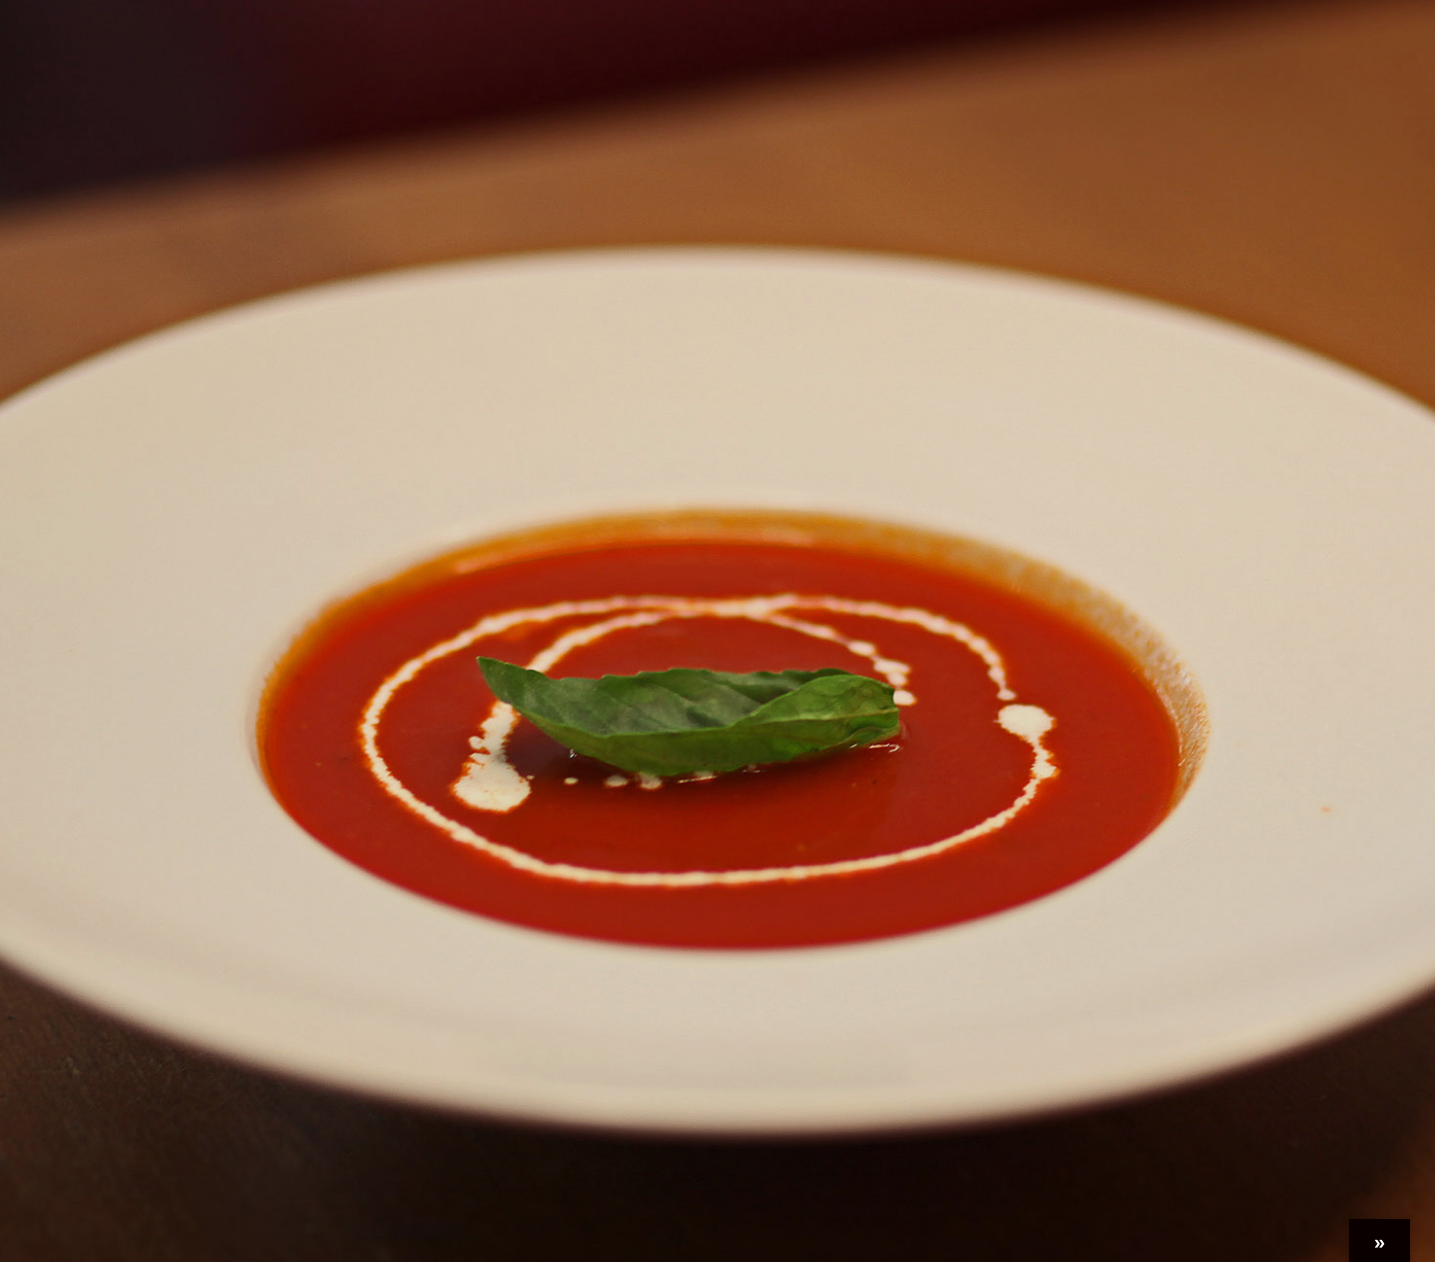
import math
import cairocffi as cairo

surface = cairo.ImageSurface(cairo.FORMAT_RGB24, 1435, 1262)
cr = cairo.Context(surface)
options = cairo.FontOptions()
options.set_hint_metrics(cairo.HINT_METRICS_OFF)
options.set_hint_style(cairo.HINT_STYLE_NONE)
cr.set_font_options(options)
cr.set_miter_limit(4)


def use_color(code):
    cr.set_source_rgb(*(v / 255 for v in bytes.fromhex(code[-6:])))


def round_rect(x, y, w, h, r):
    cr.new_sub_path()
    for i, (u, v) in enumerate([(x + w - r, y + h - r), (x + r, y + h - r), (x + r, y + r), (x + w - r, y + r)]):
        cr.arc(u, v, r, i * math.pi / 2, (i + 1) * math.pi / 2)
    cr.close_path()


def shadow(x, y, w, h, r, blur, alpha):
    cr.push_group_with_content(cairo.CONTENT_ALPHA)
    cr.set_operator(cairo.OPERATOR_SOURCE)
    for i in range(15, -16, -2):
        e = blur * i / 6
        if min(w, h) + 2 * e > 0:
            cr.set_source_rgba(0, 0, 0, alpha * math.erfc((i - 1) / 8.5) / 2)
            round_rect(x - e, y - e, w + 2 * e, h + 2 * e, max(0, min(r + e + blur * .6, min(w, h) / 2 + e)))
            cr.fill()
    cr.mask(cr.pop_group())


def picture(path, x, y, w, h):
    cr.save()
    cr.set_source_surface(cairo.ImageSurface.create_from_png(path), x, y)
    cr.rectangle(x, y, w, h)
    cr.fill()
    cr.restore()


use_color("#ffffff")
cr.paint()
picture("img1.png", 0, 0, 1435, 1262)
use_color("#000000")
shadow(1349, 1219, 61, 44, 0, 5.5, 0.3)
use_color("#0a0000")
cr.rectangle(1349, 1219, 61, 43)
cr.fill()
cr.select_font_face("Liberation Sans", cairo.FONT_SLANT_NORMAL, cairo.FONT_WEIGHT_BOLD)
cr.set_font_size(20)
use_color("#ffffff")
cr.move_to(1374, 1249)
cr.show_text("»")
surface.write_to_png("result.png")
